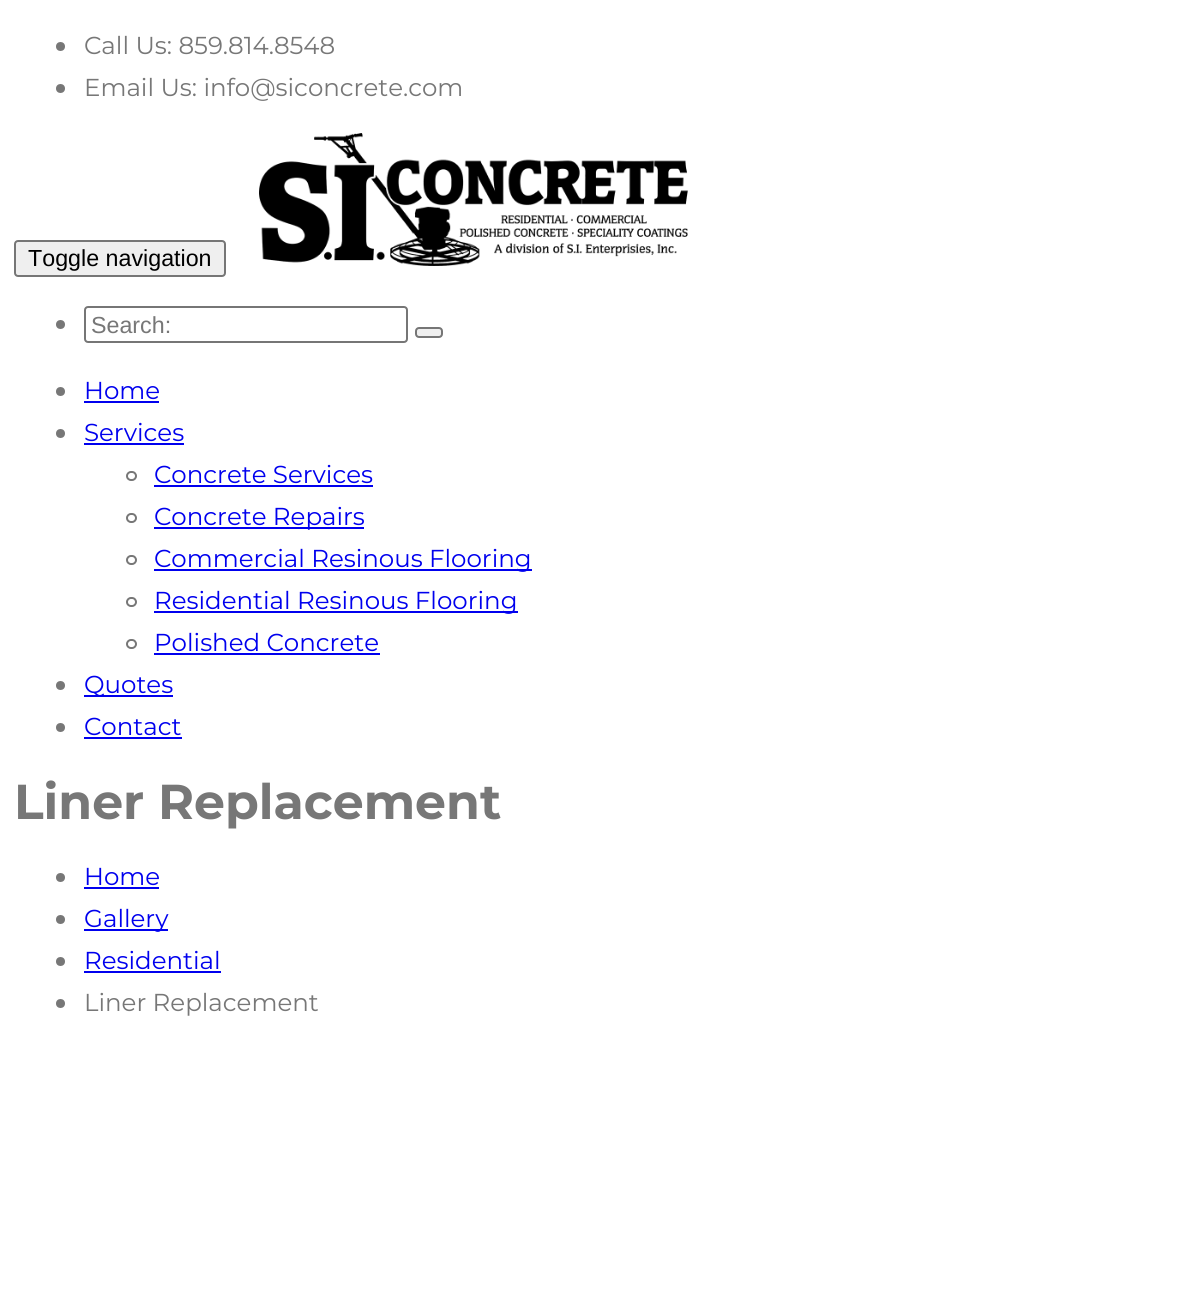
import math
import cairocffi as cairo

surface = cairo.ImageSurface(cairo.FORMAT_RGB24, 1192, 1293)
cr = cairo.Context(surface)
options = cairo.FontOptions()
options.set_hint_metrics(cairo.HINT_METRICS_OFF)
options.set_hint_style(cairo.HINT_STYLE_NONE)
cr.set_font_options(options)
cr.set_miter_limit(4)


def use_color(code):
    cr.set_source_rgb(*(v / 255 for v in bytes.fromhex(code[-6:])))


def round_rect(x, y, w, h, r):
    cr.new_sub_path()
    for i, (u, v) in enumerate([(x + w - r, y + h - r), (x + r, y + h - r), (x + r, y + r), (x + w - r, y + r)]):
        cr.arc(u, v, r, i * math.pi / 2, (i + 1) * math.pi / 2)
    cr.close_path()


def picture(path, x, y, w, h):
    cr.save()
    cr.set_source_surface(cairo.ImageSurface.create_from_png(path), x, y)
    cr.rectangle(x, y, w, h)
    cr.fill()
    cr.restore()


use_color("#ffffff")
cr.paint()
use_color("#777777")
cr.arc(60.5, 46.5, 4.5, 0, 2 * math.pi)
cr.fill()
cr.select_font_face("Montserrat Thin")
cr.set_font_size(24.5)
cr.move_to(84, 54)
cr.show_text("Call Us: 859.814.8548")
cr.new_path()
cr.arc(60.5, 88.5, 4.5, 0, 2 * math.pi)
cr.fill()
cr.move_to(84, 96)
cr.show_text("Email Us: info@siconcrete.com")
use_color("#efefef")
round_rect(15, 241, 210, 35, 3)
cr.fill_preserve()
use_color("#767676")
cr.stroke()
cr.select_font_face("Liberation Sans")
cr.set_font_size(23.25)
use_color("#000000")
cr.move_to(28, 266)
cr.show_text("Toggle navigation")
picture("img1.png", 259, 133, 429, 133)
use_color("#777777")
cr.arc(60.5, 324.5, 4.5, 0, 2 * math.pi)
cr.fill()
round_rect(85, 307, 322, 35, 3)
use_color("#767676")
cr.stroke()
use_color("#777777")
cr.move_to(91, 333)
cr.show_text("Search:")
use_color("#efefef")
round_rect(416, 328, 26, 9, 3)
cr.fill_preserve()
use_color("#767676")
cr.stroke()
use_color("#777777")
cr.arc(60.5, 391.5, 4.5, 0, 2 * math.pi)
cr.fill()
cr.select_font_face("Montserrat Thin")
cr.set_font_size(24.5)
use_color("#0000ee")
cr.move_to(84, 399)
cr.show_text("Home")
cr.rectangle(84, 401, 75, 2)
cr.fill()
use_color("#777777")
cr.arc(60.5, 433.5, 4.5, 0, 2 * math.pi)
cr.fill()
use_color("#0000ee")
cr.move_to(84, 441)
cr.show_text("Services")
cr.rectangle(84, 443, 100, 2)
cr.fill()
round_rect(127, 472, 9, 8, 4)
use_color("#777777")
cr.stroke()
use_color("#0000ee")
cr.move_to(154, 483)
cr.show_text("Concrete Services")
cr.rectangle(154, 485, 219, 2)
cr.fill()
round_rect(127, 514, 9, 8, 4)
use_color("#777777")
cr.stroke()
use_color("#0000ee")
cr.rectangle(154, 527, 210, 2)
cr.fill()
cr.move_to(154, 525)
cr.show_text("Concrete Repairs")
round_rect(127, 556, 9, 8, 4)
use_color("#777777")
cr.stroke()
use_color("#0000ee")
cr.rectangle(154, 569, 378, 2)
cr.fill()
cr.move_to(154, 567)
cr.show_text("Commercial Resinous Flooring")
round_rect(127, 598, 9, 8, 4)
use_color("#777777")
cr.stroke()
use_color("#0000ee")
cr.rectangle(154, 611, 364, 2)
cr.fill()
cr.move_to(154, 609)
cr.show_text("Residential Resinous Flooring")
round_rect(127, 640, 9, 8, 4)
use_color("#777777")
cr.stroke()
use_color("#0000ee")
cr.move_to(154, 651)
cr.show_text("Polished Concrete")
cr.rectangle(154, 653, 226, 2)
cr.fill()
use_color("#777777")
cr.arc(60.5, 685.5, 4.5, 0, 2 * math.pi)
cr.fill()
use_color("#0000ee")
cr.rectangle(84, 695, 89, 2)
cr.fill()
cr.move_to(84, 693)
cr.show_text("Quotes")
use_color("#777777")
cr.new_path()
cr.arc(60.5, 727.5, 4.5, 0, 2 * math.pi)
cr.fill()
use_color("#0000ee")
cr.move_to(84, 735)
cr.show_text("Contact")
cr.rectangle(84, 737, 98, 2)
cr.fill()
cr.select_font_face("Montserrat", cairo.FONT_SLANT_NORMAL, cairo.FONT_WEIGHT_BOLD)
cr.set_font_size(49)
use_color("#777777")
cr.move_to(14, 819)
cr.show_text("Liner Replacement")
cr.new_path()
cr.arc(60.5, 877.5, 4.5, 0, 2 * math.pi)
cr.fill()
cr.select_font_face("Montserrat Thin")
cr.set_font_size(24.5)
use_color("#0000ee")
cr.move_to(84, 885)
cr.show_text("Home")
cr.rectangle(84, 887, 75, 2)
cr.fill()
use_color("#777777")
cr.arc(60.5, 919.5, 4.5, 0, 2 * math.pi)
cr.fill()
use_color("#0000ee")
cr.rectangle(84, 929, 84, 2)
cr.fill()
cr.move_to(84, 927)
cr.show_text("Gallery")
use_color("#777777")
cr.new_path()
cr.arc(60.5, 961.5, 4.5, 0, 2 * math.pi)
cr.fill()
use_color("#0000ee")
cr.move_to(84, 969)
cr.show_text("Residential")
cr.rectangle(84, 971, 137, 2)
cr.fill()
use_color("#777777")
cr.arc(60.5, 1003.5, 4.5, 0, 2 * math.pi)
cr.fill()
cr.move_to(84, 1011)
cr.show_text("Liner Replacement")
surface.write_to_png("result.png")
